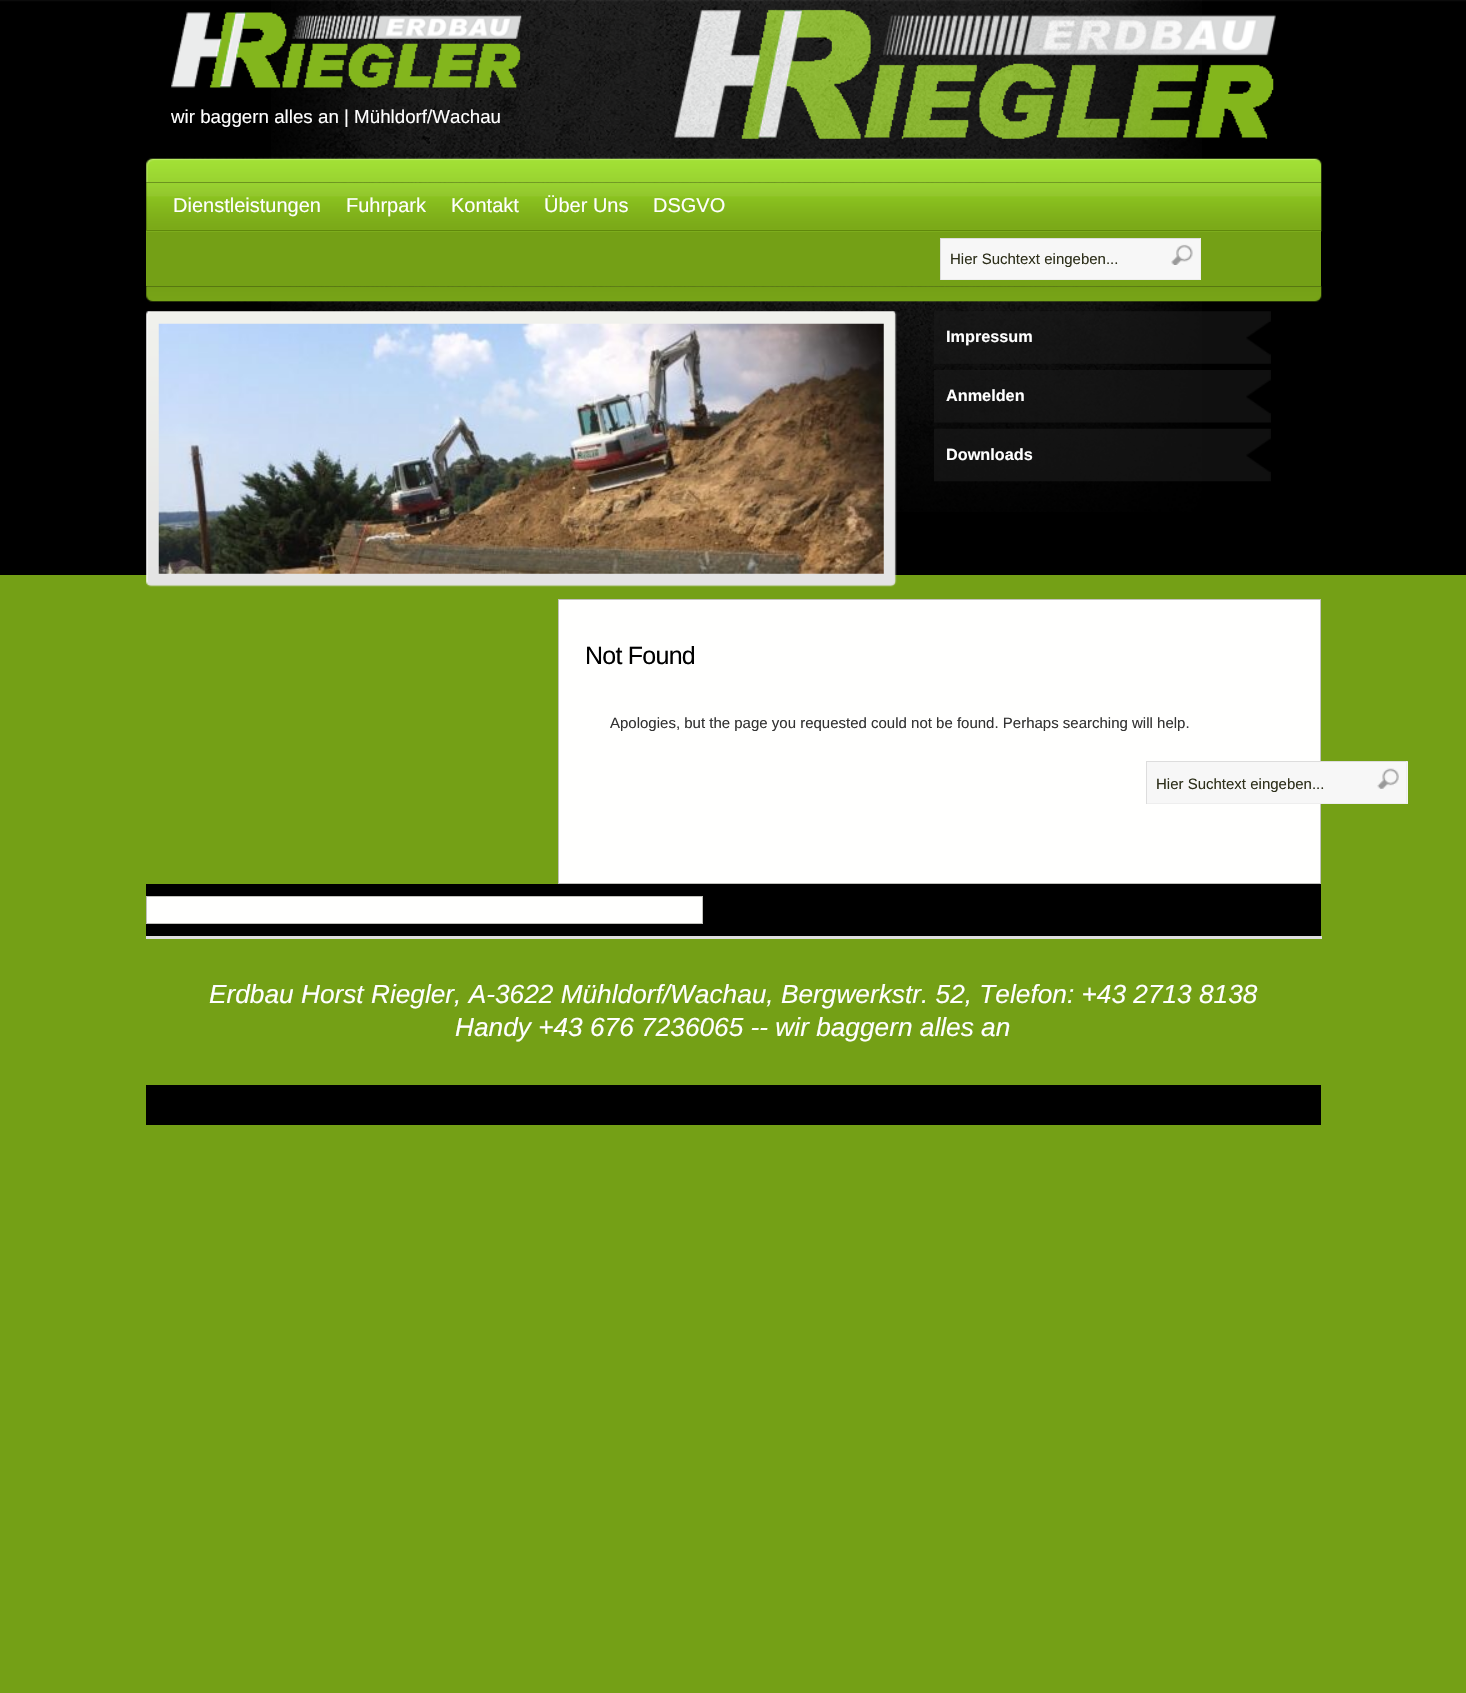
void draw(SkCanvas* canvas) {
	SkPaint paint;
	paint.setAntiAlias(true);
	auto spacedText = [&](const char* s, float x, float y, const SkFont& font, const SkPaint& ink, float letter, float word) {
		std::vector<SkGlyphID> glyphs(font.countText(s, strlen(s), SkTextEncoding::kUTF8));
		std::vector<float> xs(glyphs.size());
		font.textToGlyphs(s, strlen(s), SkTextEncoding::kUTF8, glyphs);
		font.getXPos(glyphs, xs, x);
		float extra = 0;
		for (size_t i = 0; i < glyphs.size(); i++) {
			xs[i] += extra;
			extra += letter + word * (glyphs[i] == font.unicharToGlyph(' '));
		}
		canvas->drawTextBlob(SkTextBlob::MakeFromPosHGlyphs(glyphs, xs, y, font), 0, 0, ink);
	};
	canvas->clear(0xff74a016);
	canvas->drawImageRect(SkImages::DeferredFromEncodedData(SkData::MakeFromFileName("img1.png")), SkRect::MakeXYWH(0, 0, 1466, 575), SkSamplingOptions());
	canvas->drawImageRect(SkImages::DeferredFromEncodedData(SkData::MakeFromFileName("img2.png")), SkRect::MakeXYWH(271, 0, 931, 512), SkSamplingOptions());
	canvas->drawImageRect(SkImages::DeferredFromEncodedData(SkData::MakeFromFileName("img3.png")), SkRect::MakeXYWH(171, 12, 351, 76), SkSamplingOptions());
	SkFont f1(fontMgr->matchFamilyStyle("Liberation Sans", SkFontStyle::Normal()), 18.75);
	f1.setSubpixel(true);
	paint.setColor(0xffffffff);
	canvas->drawString("wir baggern alles an | Mühldorf/Wachau", 171, 123, f1, paint);
	canvas->drawImageRect(SkImages::DeferredFromEncodedData(SkData::MakeFromFileName("img4.png")), SkRect::MakeXYWH(146, 157, 1176, 26), SkSamplingOptions());
	paint.setColor(0xff74a016);
	canvas->drawRect(SkRect::MakeXYWH(146, 231, 1175, 55), paint);
	canvas->drawImageRect(SkImages::DeferredFromEncodedData(SkData::MakeFromFileName("img5.png")), SkRect::MakeXYWH(146, 182, 1176, 50), SkSamplingOptions());
	paint.setColor(0xff60880c);
	canvas->drawRect(SkRect::MakeXYWH(146, 230, 1175, 1), paint);
	SkFont f2(fontMgr->matchFamilyStyle("Liberation Sans", SkFontStyle::Normal()), 20);
	f2.setSubpixel(true);
	paint.setColor(0xffffffff);
	canvas->drawString("Dienstleistungen", 173, 212, f2, paint);
	canvas->drawString("Fuhrpark", 346, 212, f2, paint);
	canvas->drawString("Kontakt", 451, 212, f2, paint);
	canvas->drawString("Über Uns", 544, 212, f2, paint);
	canvas->drawString("DSGVO", 653, 212, f2, paint);
	paint.setColor(0xfff7f7f7);
	canvas->drawRect(SkRect::MakeXYWH(941, 239, 259, 40), paint);
	paint.setColor(0xffdddddd);
	canvas->drawRect(SkRect::MakeXYWH(940, 238, 261, 1), paint);
	paint.setColor(0xffeeeeee);
	canvas->drawRect(SkRect::MakeXYWH(1200, 238, 1, 42), paint);
	canvas->drawRect(SkRect::MakeXYWH(940, 279, 261, 1), paint);
	paint.setColor(0xffdddddd);
	canvas->drawRect(SkRect::MakeXYWH(940, 238, 1, 42), paint);
	SkFont f3(fontMgr->matchFamilyStyle("Liberation Sans", SkFontStyle::Normal()), 15);
	f3.setSubpixel(true);
	paint.setColor(0xff2e301b);
	canvas->drawString("Hier Suchtext eingeben...", 950, 264, f3, paint);
	canvas->drawImageRect(SkImages::DeferredFromEncodedData(SkData::MakeFromFileName("img6.png")), SkRect::MakeXYWH(1171, 244, 22, 21), SkSamplingOptions());
	canvas->drawImageRect(SkImages::DeferredFromEncodedData(SkData::MakeFromFileName("img7.png")), SkRect::MakeXYWH(146, 286, 1176, 17), SkSamplingOptions());
	canvas->drawImageRect(SkImages::DeferredFromEncodedData(SkData::MakeFromFileName("img8.png")), SkRect::MakeXYWH(146, 311, 751, 276), SkSamplingOptions());
	canvas->drawImageRect(SkImages::DeferredFromEncodedData(SkData::MakeFromFileName("img9.png")), SkRect::MakeXYWH(158, 323, 726, 251), SkSamplingOptions());
	canvas->drawImageRect(SkImages::DeferredFromEncodedData(SkData::MakeFromFileName("img10.png")), SkRect::MakeXYWH(934, 311, 337, 53), SkSamplingOptions());
	SkFont f4(fontMgr->matchFamilyStyle("Liberation Sans", SkFontStyle::Bold()), 16.25);
	f4.setSubpixel(true);
	paint.setColor(0xffffffff);
	canvas->drawString("Impressum", 946, 342, f4, paint);
	canvas->drawImageRect(SkImages::DeferredFromEncodedData(SkData::MakeFromFileName("img11.png")), SkRect::MakeXYWH(934, 370, 337, 53), SkSamplingOptions());
	canvas->drawString("Anmelden", 946, 401, f4, paint);
	canvas->drawImageRect(SkImages::DeferredFromEncodedData(SkData::MakeFromFileName("img12.png")), SkRect::MakeXYWH(934, 428, 337, 54), SkSamplingOptions());
	canvas->drawString("Downloads", 946, 460, f4, paint);
	paint.setColor(0xfffffffe);
	canvas->drawRect(SkRect::MakeXYWH(558.5, 599.5, 762, 284), paint);
	paint.setStroke(true);
	paint.setStrokeWidth(1);
	paint.setColor(0xffc1c1bc);
	canvas->drawRect(SkRect::MakeXYWH(558.5, 599.5, 762, 284), paint);
	SkFont f5(fontMgr->matchFamilyStyle("Liberation Sans", SkFontStyle::Normal()), 25);
	f5.setSubpixel(true);
	paint.setStroke(false);
	paint.setColor(0xff000000);
	spacedText("Not Found", 585, 664, f5, paint, -0.75, 0);
	paint.setColor(0xff333333);
	canvas->drawString("Apologies, but the page you requested could not be found. Perhaps searching will help.", 610, 728, f3, paint);
	paint.setColor(0xfff7f7f7);
	canvas->drawRect(SkRect::MakeXYWH(1147, 762, 261, 41), paint);
	paint.setColor(0xffdddddd);
	canvas->drawRect(SkRect::MakeXYWH(1146, 761, 262, 1), paint);
	paint.setColor(0xffeeeeee);
	canvas->drawRect(SkRect::MakeXYWH(1406, 761, 1, 43), paint);
	canvas->drawRect(SkRect::MakeXYWH(1146, 803, 262, 1), paint);
	paint.setColor(0xffdddddd);
	canvas->drawRect(SkRect::MakeXYWH(1146, 761, 1, 43), paint);
	paint.setColor(0xff2e301b);
	canvas->drawString("Hier Suchtext eingeben...", 1156, 789, f3, paint);
	canvas->drawImageRect(SkImages::DeferredFromEncodedData(SkData::MakeFromFileName("img13.png")), SkRect::MakeXYWH(1377, 768, 22, 21), SkSamplingOptions());
	paint.setColor(0xff000000);
	canvas->drawRect(SkRect::MakeXYWH(146, 884, 1175, 241), paint);
	paint.setColor(0xfffffffe);
	canvas->drawRect(SkRect::MakeXYWH(146.5, 896.5, 556, 27), paint);
	paint.setStroke(true);
	paint.setColor(0xffc1c1bc);
	canvas->drawRect(SkRect::MakeXYWH(146.5, 896.5, 556, 27), paint);
	paint.setStroke(false);
	paint.setColor(0xff74a016);
	canvas->drawRect(SkRect::MakeXYWH(146, 939, 1175, 146), paint);
	paint.setColor(0xffdedede);
	canvas->drawRect(SkRect::MakeXYWH(146, 936, 1176, 3), paint);
	SkFont f6(fontMgr->matchFamilyStyle("Liberation Sans", SkFontStyle::Italic()), 26.25);
	f6.setSubpixel(true);
	paint.setColor(0xffffffff);
	canvas->drawString("Erdbau Horst Riegler, A-3622 Mühldorf/Wachau, Bergwerkstr. 52, Telefon: +43 2713 8138", 209, 1003, f6, paint);
	canvas->drawString("Handy +43 676 7236065 -- wir baggern alles an", 455, 1036, f6, paint);
}
